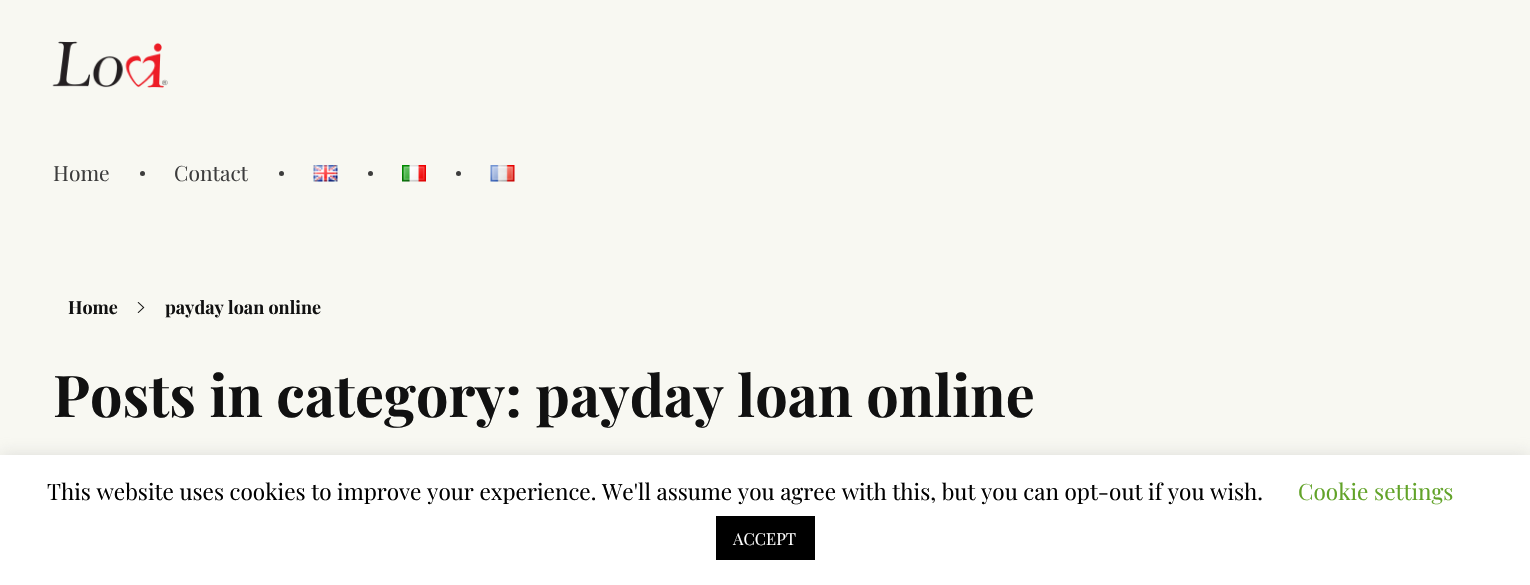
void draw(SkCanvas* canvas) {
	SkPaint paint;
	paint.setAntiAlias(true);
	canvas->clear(0xfff8f8f2);
	canvas->drawImageRect(SkImages::DeferredFromEncodedData(SkData::MakeFromFileName("img1.png")), SkRect::MakeXYWH(52, 41, 116, 47), SkSamplingOptions());
	SkFont f1(fontMgr->matchFamilyStyle("Playfair Display", SkFontStyle::Normal()), 21);
	f1.setSubpixel(true);
	paint.setColor(0xff3d3d3d);
	canvas->drawString("Home", 53, 181, f1, paint);
	canvas->drawCircle(142.5, 173.5, 2.5, paint);
	canvas->drawString("Contact", 174, 181, f1, paint);
	canvas->drawCircle(281.5, 173.5, 2.5, paint);
	canvas->drawImageRect(SkImages::DeferredFromEncodedData(SkData::MakeFromFileName("img2.png")), SkRect::MakeXYWH(313, 165, 25, 17), SkSamplingOptions());
	canvas->drawCircle(370.5, 173.5, 2.5, paint);
	canvas->drawImageRect(SkImages::DeferredFromEncodedData(SkData::MakeFromFileName("img3.png")), SkRect::MakeXYWH(402, 165, 24, 17), SkSamplingOptions());
	canvas->drawCircle(458.5, 173.5, 2.5, paint);
	canvas->drawImageRect(SkImages::DeferredFromEncodedData(SkData::MakeFromFileName("img4.png")), SkRect::MakeXYWH(490, 165, 25, 17), SkSamplingOptions());
	SkFont f2(fontMgr->matchFamilyStyle("Playfair Display", SkFontStyle::Bold()), 18);
	f2.setSubpixel(true);
	paint.setColor(0xff111111);
	canvas->drawString("Home", 68, 314, f2, paint);
	canvas->drawImageRect(SkImages::DeferredFromEncodedData(SkData::MakeFromFileName("img5.png")), SkRect::MakeXYWH(137, 302, 8, 11), SkSamplingOptions());
	canvas->drawString("payday loan online", 165, 314, f2, paint);
	SkFont f3(fontMgr->matchFamilyStyle("Playfair Display", SkFontStyle::Bold()), 57.6);
	f3.setSubpixel(true);
	canvas->drawString("Posts in category: payday loan online", 53, 417, f3, paint);
	paint.setColor(0x4dacabab);
	paint.setMaskFilter(SkMaskFilter::MakeBlur(kNormal_SkBlurStyle, 7.5));
	canvas->drawRect(SkRect::MakeXYWH(0, 453, 1530, 131), paint);
	paint.setMaskFilter(nullptr);
	paint.setColor(0xffffffff);
	canvas->drawRect(SkRect::MakeXYWH(0, 455, 1530, 130), paint);
	SkFont f4(fontMgr->matchFamilyStyle("Playfair Display", SkFontStyle::Normal()), 22.5);
	f4.setSubpixel(true);
	paint.setColor(0xff000000);
	canvas->drawString("This website uses cookies to improve your experience. We'll assume you agree with this, but you can opt-out if you wish.", 47, 500, f4, paint);
	paint.setColor(0xff62a329);
	canvas->drawString("Cookie settings", 1298, 500, f4, paint);
	paint.setColor(0xff000000);
	canvas->drawRect(SkRect::MakeXYWH(716, 516, 99, 44), paint);
	SkFont f5(fontMgr->matchFamilyStyle("Playfair Display", SkFontStyle::Normal()), 16.5);
	f5.setSubpixel(true);
	paint.setColor(0xffffffff);
	canvas->drawString("ACCEPT", 733, 545, f5, paint);
}
